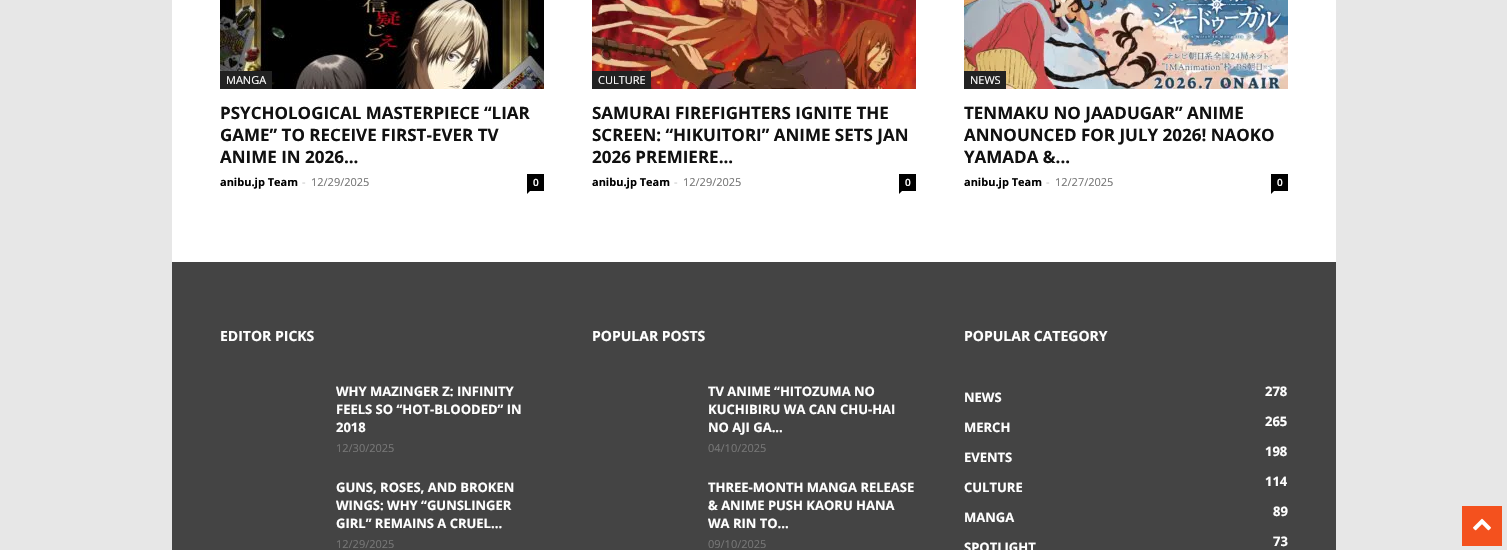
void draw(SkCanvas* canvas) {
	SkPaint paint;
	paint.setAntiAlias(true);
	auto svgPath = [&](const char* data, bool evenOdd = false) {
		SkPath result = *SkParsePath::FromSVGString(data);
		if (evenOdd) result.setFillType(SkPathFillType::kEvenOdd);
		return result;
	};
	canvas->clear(0xffe7e7e7);
	paint.setColor(0xffffffff);
	canvas->drawRect(SkRect::MakeXYWH(172, 0, 1164, 262), paint);
	canvas->drawImageRect(SkImages::DeferredFromEncodedData(SkData::MakeFromFileName("img1.png")), SkRect::MakeXYWH(220, 0, 324, 89), SkSamplingOptions());
	paint.setColor(0xff222222);
	canvas->drawRect(SkRect::MakeXYWH(220, 71, 52, 18), paint);
	SkFont f1(fontMgr->matchFamilyStyle("Open Sans", SkFontStyle::Normal()), 11);
	f1.setSubpixel(true);
	paint.setColor(0xffffffff);
	canvas->drawString("MANGA", 226, 84, f1, paint);
	SkFont f2(fontMgr->matchFamilyStyle("Open Sans", SkFontStyle::Bold()), 17);
	f2.setSubpixel(true);
	paint.setColor(0xff111111);
	canvas->drawString("PSYCHOLOGICAL MASTERPIECE “LIAR", 220, 119, f2, paint);
	canvas->drawString("GAME” TO RECEIVE FIRST-EVER TV", 220, 141, f2, paint);
	canvas->drawString("ANIME IN 2026...", 220, 163, f2, paint);
	SkFont f3(fontMgr->matchFamilyStyle("Open Sans", SkFontStyle::Bold()), 11);
	f3.setSubpixel(true);
	paint.setColor(0xff000000);
	canvas->drawString("anibu.jp Team", 220, 186, f3, paint);
	paint.setColor(0xffcccccc);
	canvas->drawString("-", 302, 186, f1, paint);
	paint.setColor(0xff767676);
	canvas->drawString("12/29/2025", 311, 186, f1, paint);
	paint.setColor(0xff000000);
	canvas->drawRect(SkRect::MakeXYWH(527, 174, 17, 17), paint);
	SkFont f4(fontMgr->matchFamilyStyle("Open Sans", SkFontStyle(600, SkFontStyle::kNormal_Width, SkFontStyle::kUpright_Slant)), 10);
	f4.setSubpixel(true);
	paint.setColor(0xffffffff);
	canvas->drawString("0", 533, 186, f4, paint);
	paint.setColor(0xff000000);
	canvas->drawPath(svgPath("M527 191H530L527 194Z"), paint);
	canvas->drawImageRect(SkImages::DeferredFromEncodedData(SkData::MakeFromFileName("img2.png")), SkRect::MakeXYWH(592, 0, 324, 89), SkSamplingOptions());
	paint.setColor(0xff222222);
	canvas->drawRect(SkRect::MakeXYWH(592, 71, 59, 18), paint);
	paint.setColor(0xffffffff);
	canvas->drawString("CULTURE", 598, 84, f1, paint);
	paint.setColor(0xff111111);
	canvas->drawString("SAMURAI FIREFIGHTERS IGNITE THE", 592, 119, f2, paint);
	canvas->drawString("SCREEN: “HIKUITORI” ANIME SETS JAN", 592, 141, f2, paint);
	canvas->drawString("2026 PREMIERE...", 592, 163, f2, paint);
	paint.setColor(0xff000000);
	canvas->drawString("anibu.jp Team", 592, 186, f3, paint);
	paint.setColor(0xffcccccc);
	canvas->drawString("-", 674, 186, f1, paint);
	paint.setColor(0xff767676);
	canvas->drawString("12/29/2025", 683, 186, f1, paint);
	paint.setColor(0xff000000);
	canvas->drawRect(SkRect::MakeXYWH(899, 174, 17, 17), paint);
	paint.setColor(0xffffffff);
	canvas->drawString("0", 905, 186, f4, paint);
	paint.setColor(0xff000000);
	canvas->drawPath(svgPath("M899 191H902L899 194Z"), paint);
	canvas->drawImageRect(SkImages::DeferredFromEncodedData(SkData::MakeFromFileName("img3.png")), SkRect::MakeXYWH(964, 0, 324, 89), SkSamplingOptions());
	paint.setColor(0xff222222);
	canvas->drawRect(SkRect::MakeXYWH(964, 71, 42, 18), paint);
	paint.setColor(0xffffffff);
	canvas->drawString("NEWS", 970, 84, f1, paint);
	paint.setColor(0xff111111);
	canvas->drawString("TENMAKU NO JAADUGAR” ANIME", 964, 119, f2, paint);
	canvas->drawString("ANNOUNCED FOR JULY 2026! NAOKO", 964, 141, f2, paint);
	canvas->drawString("YAMADA &...", 964, 163, f2, paint);
	paint.setColor(0xff000000);
	canvas->drawString("anibu.jp Team", 964, 186, f3, paint);
	paint.setColor(0xffcccccc);
	canvas->drawString("-", 1046, 186, f1, paint);
	paint.setColor(0xff767676);
	canvas->drawString("12/27/2025", 1055, 186, f1, paint);
	paint.setColor(0xff000000);
	canvas->drawRect(SkRect::MakeXYWH(1271, 174, 17, 17), paint);
	paint.setColor(0xffffffff);
	canvas->drawString("0", 1277, 186, f4, paint);
	paint.setColor(0xff000000);
	canvas->drawPath(svgPath("M1271 191H1274L1271 194Z"), paint);
	paint.setColor(0xff444444);
	canvas->drawRect(SkRect::MakeXYWH(172, 262, 1164, 288), paint);
	SkFont f5(fontMgr->matchFamilyStyle("Open Sans", SkFontStyle::Bold()), 14);
	f5.setSubpixel(true);
	paint.setColor(0xffffffff);
	canvas->drawString("EDITOR PICKS", 220, 341, f5, paint);
	SkFont f6(fontMgr->matchFamilyStyle("Open Sans", SkFontStyle::Bold()), 13);
	f6.setSubpixel(true);
	canvas->drawString("WHY MAZINGER Z: INFINITY", 336, 396, f6, paint);
	canvas->drawString("FEELS SO “HOT-BLOODED” IN", 336, 414, f6, paint);
	canvas->drawString("2018", 336, 432, f6, paint);
	paint.setColor(0xff767676);
	canvas->drawString("12/30/2025", 336, 452, f1, paint);
	paint.setColor(0xffffffff);
	canvas->drawString("GUNS, ROSES, AND BROKEN", 336, 492, f6, paint);
	canvas->drawString("WINGS: WHY “GUNSLINGER", 336, 510, f6, paint);
	canvas->drawString("GIRL” REMAINS A CRUEL...", 336, 528, f6, paint);
	paint.setColor(0xff767676);
	canvas->drawString("12/29/2025", 336, 548, f1, paint);
	paint.setColor(0xffffffff);
	canvas->drawString("POPULAR POSTS", 592, 341, f5, paint);
	canvas->drawString("TV ANIME “HITOZUMA NO", 708, 396, f6, paint);
	canvas->drawString("KUCHIBIRU WA CAN CHU-HAI", 708, 414, f6, paint);
	canvas->drawString("NO AJI GA...", 708, 432, f6, paint);
	paint.setColor(0xff767676);
	canvas->drawString("04/10/2025", 708, 452, f1, paint);
	paint.setColor(0xffffffff);
	canvas->drawString("THREE-MONTH MANGA RELEASE", 708, 492, f6, paint);
	canvas->drawString("& ANIME PUSH KAORU HANA", 708, 510, f6, paint);
	canvas->drawString("WA RIN TO...", 708, 528, f6, paint);
	paint.setColor(0xff767676);
	canvas->drawString("09/10/2025", 708, 548, f1, paint);
	paint.setColor(0xffffffff);
	canvas->drawString("POPULAR CATEGORY", 964, 341, f5, paint);
	canvas->drawString("NEWS", 964, 402, f6, paint);
	canvas->drawString("278", 1265, 396, f6, paint);
	canvas->drawString("MERCH", 964, 432, f6, paint);
	canvas->drawString("265", 1265, 426, f6, paint);
	canvas->drawString("EVENTS", 964, 462, f6, paint);
	canvas->drawString("198", 1265, 456, f6, paint);
	canvas->drawString("114", 1265, 486, f6, paint);
	canvas->drawString("CULTURE", 964, 492, f6, paint);
	canvas->drawString("MANGA", 964, 522, f6, paint);
	canvas->drawString("89", 1273, 516, f6, paint);
	canvas->drawString("SPOTLIGHT", 964, 552, f6, paint);
	canvas->drawString("73", 1273, 546, f6, paint);
	paint.setColor(0xfff4511e);
	canvas->drawRect(SkRect::MakeXYWH(1462, 506, 40, 40), paint);
	canvas->drawImageRect(SkImages::DeferredFromEncodedData(SkData::MakeFromFileName("img4.png")), SkRect::MakeXYWH(1473, 518, 18, 13), SkSamplingOptions());
}
